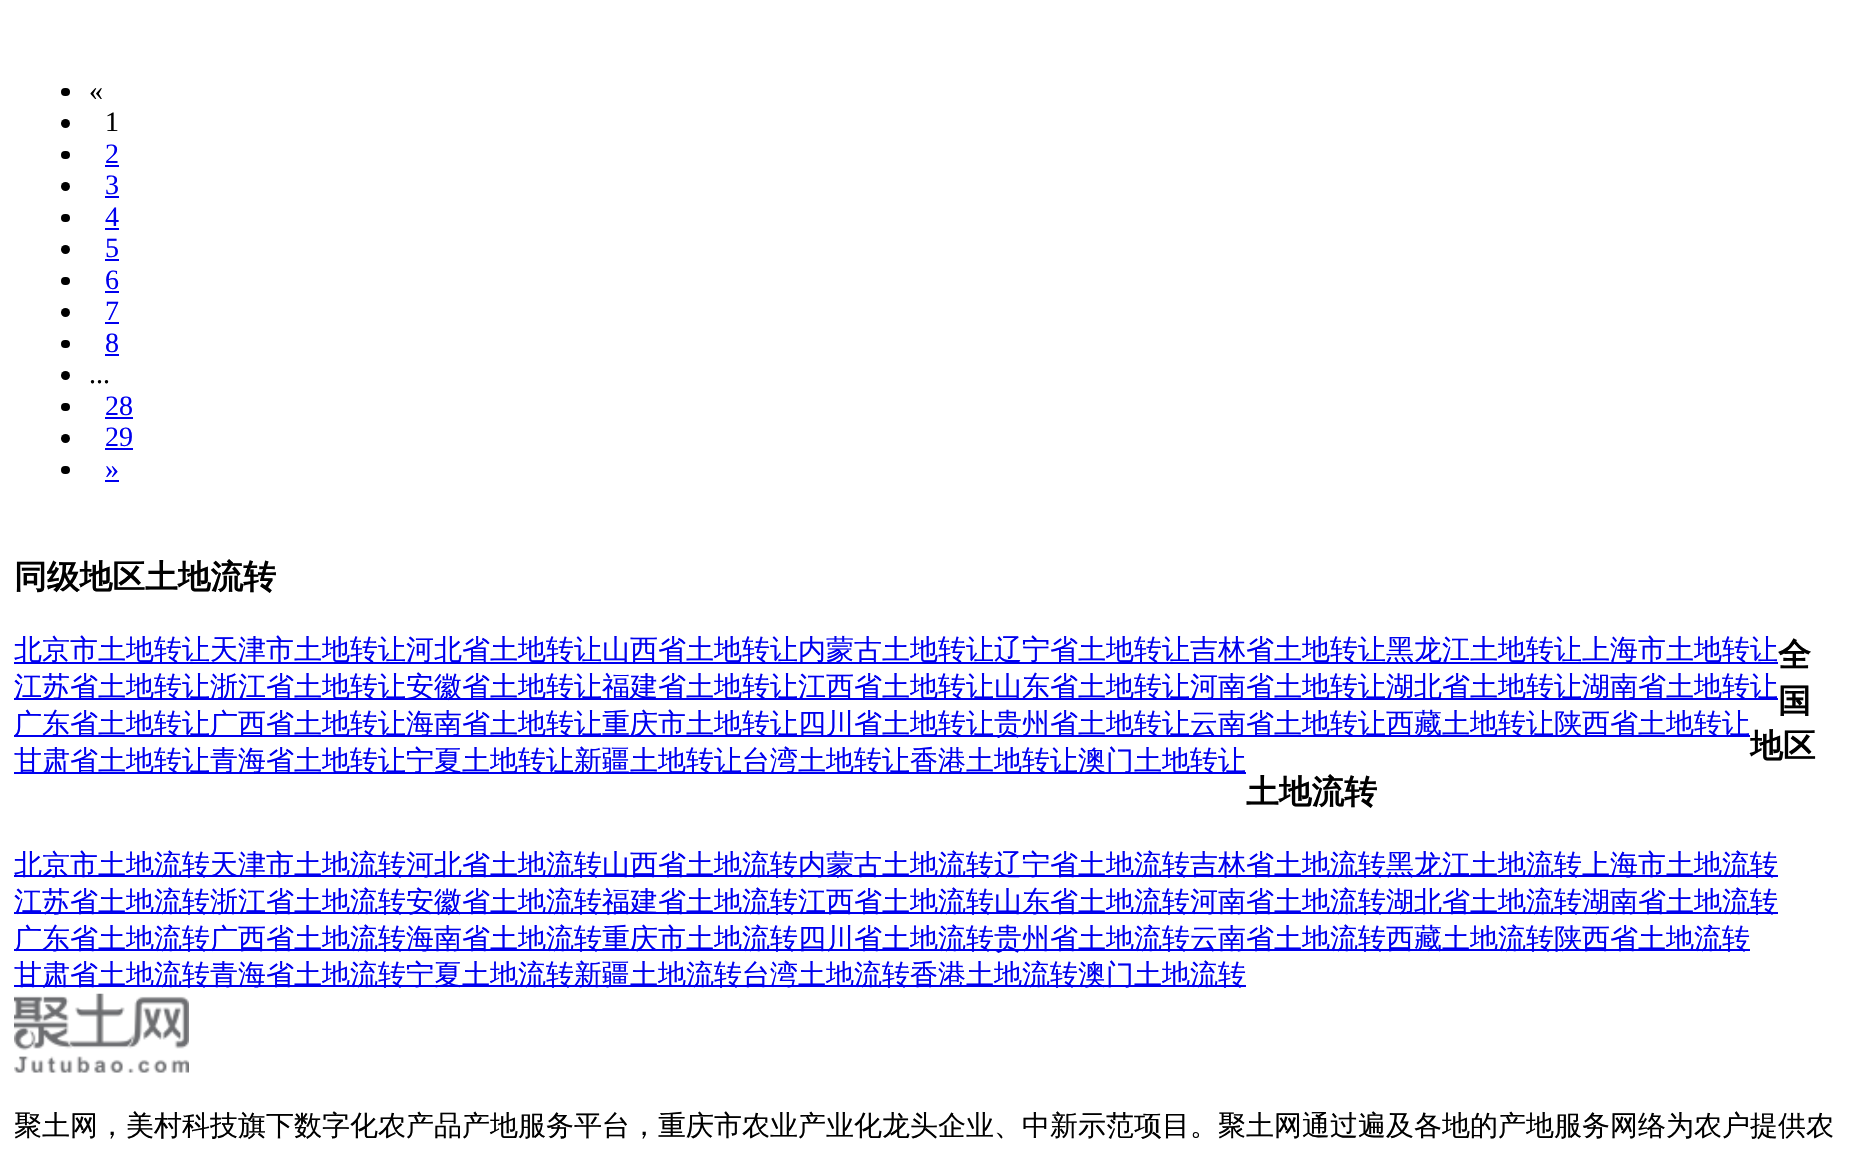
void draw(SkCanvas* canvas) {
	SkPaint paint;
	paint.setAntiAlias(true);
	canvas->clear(0xffffffff);
	paint.setColor(0xff000000);
	canvas->drawRoundRect(SkRect::MakeXYWH(61, 88, 9, 8), 4, 4, paint);
	SkFont f1(fontMgr->matchFamilyStyle("Liberation Serif", SkFontStyle::Normal()), 28);
	f1.setSubpixel(true);
	canvas->drawString("«", 89, 100, f1, paint);
	canvas->drawCircle(65.5, 123.5, 4.5, paint);
	canvas->drawString("1", 105, 131, f1, paint);
	canvas->drawRoundRect(SkRect::MakeXYWH(61, 151, 9, 8), 4, 4, paint);
	paint.setColor(0xff0000ee);
	canvas->drawString("2", 105, 163, f1, paint);
	canvas->drawRect(SkRect::MakeXYWH(105, 165, 14, 2), paint);
	paint.setColor(0xff000000);
	canvas->drawCircle(65.5, 186.5, 4.5, paint);
	paint.setColor(0xff0000ee);
	canvas->drawString("3", 105, 194, f1, paint);
	canvas->drawRect(SkRect::MakeXYWH(105, 196, 14, 2), paint);
	paint.setColor(0xff000000);
	canvas->drawRoundRect(SkRect::MakeXYWH(61, 214, 9, 8), 4, 4, paint);
	paint.setColor(0xff0000ee);
	canvas->drawString("4", 105, 226, f1, paint);
	canvas->drawRect(SkRect::MakeXYWH(105, 228, 14, 2), paint);
	paint.setColor(0xff000000);
	canvas->drawCircle(65.5, 249.5, 4.5, paint);
	paint.setColor(0xff0000ee);
	canvas->drawString("5", 105, 257, f1, paint);
	canvas->drawRect(SkRect::MakeXYWH(105, 259, 14, 2), paint);
	paint.setColor(0xff000000);
	canvas->drawRoundRect(SkRect::MakeXYWH(61, 277, 9, 8), 4, 4, paint);
	paint.setColor(0xff0000ee);
	canvas->drawString("6", 105, 289, f1, paint);
	canvas->drawRect(SkRect::MakeXYWH(105, 291, 14, 2), paint);
	paint.setColor(0xff000000);
	canvas->drawCircle(65.5, 312.5, 4.5, paint);
	paint.setColor(0xff0000ee);
	canvas->drawString("7", 105, 320, f1, paint);
	canvas->drawRect(SkRect::MakeXYWH(105, 322, 14, 2), paint);
	paint.setColor(0xff000000);
	canvas->drawRoundRect(SkRect::MakeXYWH(61, 340, 9, 8), 4, 4, paint);
	paint.setColor(0xff0000ee);
	canvas->drawString("8", 105, 352, f1, paint);
	canvas->drawRect(SkRect::MakeXYWH(105, 354, 14, 2), paint);
	paint.setColor(0xff000000);
	canvas->drawCircle(65.5, 375.5, 4.5, paint);
	canvas->drawString("...", 89, 383, f1, paint);
	canvas->drawRoundRect(SkRect::MakeXYWH(61, 403, 9, 8), 4, 4, paint);
	paint.setColor(0xff0000ee);
	canvas->drawString("28", 105, 415, f1, paint);
	canvas->drawRect(SkRect::MakeXYWH(105, 417, 28, 2), paint);
	paint.setColor(0xff000000);
	canvas->drawCircle(65.5, 438.5, 4.5, paint);
	paint.setColor(0xff0000ee);
	canvas->drawString("29", 105, 446, f1, paint);
	canvas->drawRect(SkRect::MakeXYWH(105, 448, 28, 2), paint);
	paint.setColor(0xff000000);
	canvas->drawRoundRect(SkRect::MakeXYWH(61, 466, 9, 8), 4, 4, paint);
	paint.setColor(0xff0000ee);
	canvas->drawString("»", 105, 478, f1, paint);
	canvas->drawRect(SkRect::MakeXYWH(105, 480, 14, 2), paint);
	SkFont f2(fontMgr->matchFamilyStyle("WenQuanYi Zen Hei", SkFontStyle::Bold()), 32.75);
	f2.setSubpixel(true);
	paint.setColor(0xff000000);
	canvas->drawString("同级地区土地流转", 14, 588, f2, paint);
	paint.setColor(0xff0000ee);
	canvas->drawRect(SkRect::MakeXYWH(14, 662, 1764, 2), paint);
	SkFont f3(fontMgr->matchFamilyStyle("WenQuanYi Zen Hei", SkFontStyle(500, SkFontStyle::kNormal_Width, SkFontStyle::kUpright_Slant)), 28);
	f3.setSubpixel(true);
	canvas->drawString("北京市土地转让天津市土地转让河北省土地转让山西省土地转让内蒙古土地转让辽宁省土地转让吉林省土地转让黑龙江土地转让上海市土地转让", 14, 659, f3, paint);
	canvas->drawRect(SkRect::MakeXYWH(14, 698, 1764, 2), paint);
	canvas->drawString("江苏省土地转让浙江省土地转让安徽省土地转让福建省土地转让江西省土地转让山东省土地转让河南省土地转让湖北省土地转让湖南省土地转让", 14, 696, f3, paint);
	canvas->drawRect(SkRect::MakeXYWH(14, 735, 1736, 2), paint);
	canvas->drawString("广东省土地转让广西省土地转让海南省土地转让重庆市土地转让四川省土地转让贵州省土地转让云南省土地转让西藏土地转让陕西省土地转让", 14, 733, f3, paint);
	canvas->drawRect(SkRect::MakeXYWH(14, 772, 1232, 2), paint);
	canvas->drawString("甘肃省土地转让青海省土地转让宁夏土地转让新疆土地转让台湾土地转让香港土地转让澳门土地转让", 14, 770, f3, paint);
	paint.setColor(0xff000000);
	canvas->drawString("全", 1778, 666, f2, paint);
	canvas->drawString("国", 1778, 712, f2, paint);
	canvas->drawString("地区", 1750, 757, f2, paint);
	canvas->drawString("土地流转", 1246, 803, f2, paint);
	paint.setColor(0xff0000ee);
	canvas->drawRect(SkRect::MakeXYWH(14, 875, 1764, 2), paint);
	canvas->drawString("北京市土地流转天津市土地流转河北省土地流转山西省土地流转内蒙古土地流转辽宁省土地流转吉林省土地流转黑龙江土地流转上海市土地流转", 14, 874, f3, paint);
	canvas->drawRect(SkRect::MakeXYWH(14, 912, 1764, 2), paint);
	canvas->drawString("江苏省土地流转浙江省土地流转安徽省土地流转福建省土地流转江西省土地流转山东省土地流转河南省土地流转湖北省土地流转湖南省土地流转", 14, 911, f3, paint);
	canvas->drawRect(SkRect::MakeXYWH(14, 949, 1736, 2), paint);
	canvas->drawString("广东省土地流转广西省土地流转海南省土地流转重庆市土地流转四川省土地流转贵州省土地流转云南省土地流转西藏土地流转陕西省土地流转", 14, 948, f3, paint);
	canvas->drawRect(SkRect::MakeXYWH(14, 985, 1232, 2), paint);
	canvas->drawString("甘肃省土地流转青海省土地流转宁夏土地流转新疆土地流转台湾土地流转香港土地流转澳门土地流转", 14, 984, f3, paint);
	canvas->drawImageRect(SkImages::DeferredFromEncodedData(SkData::MakeFromFileName("img1.png")), SkRect::MakeXYWH(14, 993, 175, 80), SkSamplingOptions());
	paint.setColor(0xff000000);
	canvas->drawString("聚土网，美村科技旗下数字化农产品产地服务平台，重庆市农业产业化龙头企业、中新示范项目。聚土网通过遍及各地的产地服务网络为农户提供农", 14, 1135, f3, paint);
}
